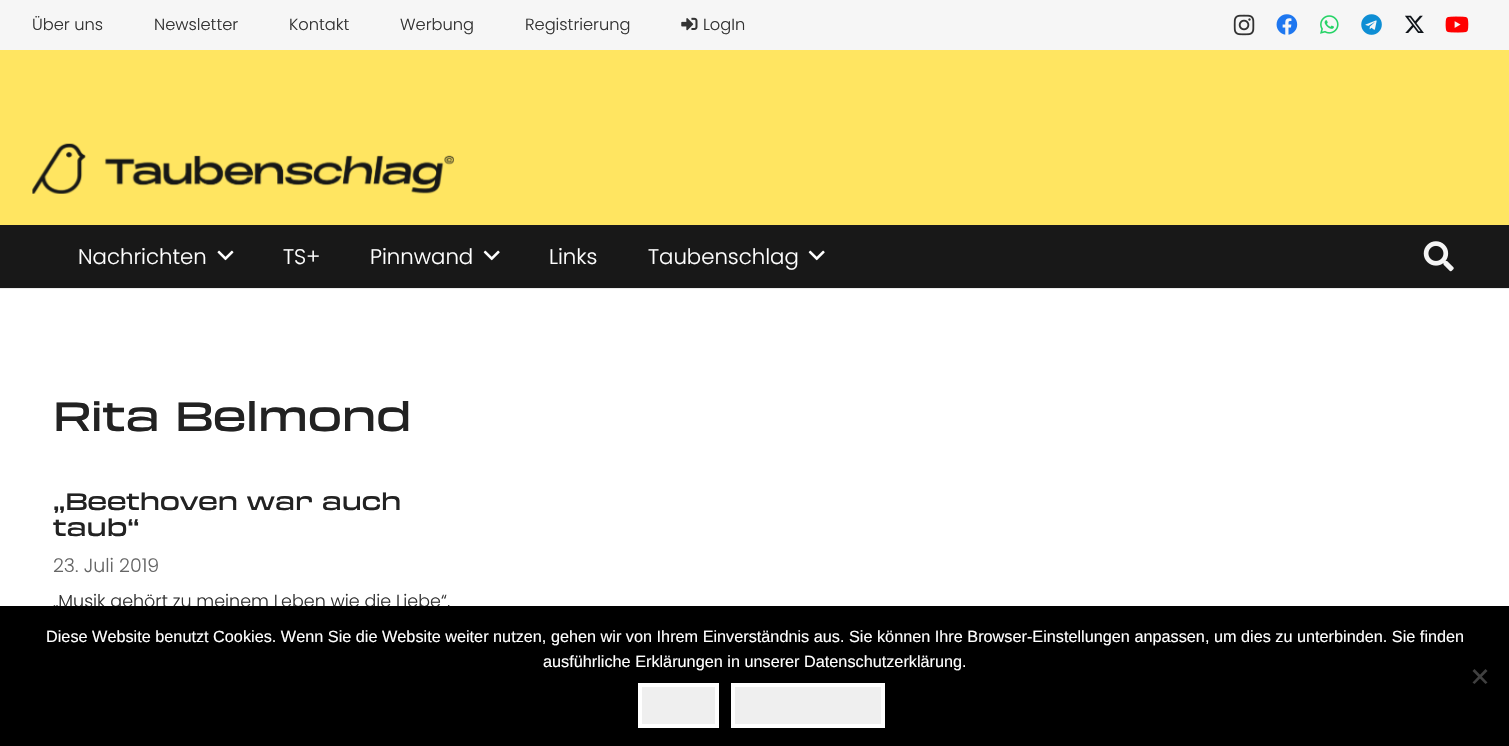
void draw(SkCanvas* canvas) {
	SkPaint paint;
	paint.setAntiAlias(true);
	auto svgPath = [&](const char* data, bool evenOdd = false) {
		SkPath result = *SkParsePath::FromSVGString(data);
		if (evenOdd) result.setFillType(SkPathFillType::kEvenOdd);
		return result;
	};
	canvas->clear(0xffffffff);
	paint.setColor(0xfff6f6f6);
	canvas->drawRect(SkRect::MakeXYWH(0, 0, 1509, 50), paint);
	SkFont f1(fontMgr->matchFamilyStyle("Poppins", SkFontStyle(300, SkFontStyle::kNormal_Width, SkFontStyle::kUpright_Slant)), 16.25);
	f1.setSubpixel(true);
	paint.setColor(0xff333333);
	canvas->drawString("Über uns", 32, 30, f1, paint);
	canvas->drawString("Newsletter", 154, 30, f1, paint);
	canvas->drawString("Kontakt", 289, 30, f1, paint);
	canvas->drawString("Werbung", 400, 30, f1, paint);
	canvas->drawString("Registrierung", 525, 30, f1, paint);
	canvas->drawImageRect(SkImages::DeferredFromEncodedData(SkData::MakeFromFileName("img1.png")), SkRect::MakeXYWH(681, 17, 17, 14), SkSamplingOptions());
	canvas->drawString("LogIn", 703, 30, f1, paint);
	canvas->drawImageRect(SkImages::DeferredFromEncodedData(SkData::MakeFromFileName("img2.png")), SkRect::MakeXYWH(1233, 14, 22, 22), SkSamplingOptions());
	canvas->drawImageRect(SkImages::DeferredFromEncodedData(SkData::MakeFromFileName("img3.png")), SkRect::MakeXYWH(1276, 14, 22, 21), SkSamplingOptions());
	canvas->drawImageRect(SkImages::DeferredFromEncodedData(SkData::MakeFromFileName("img4.png")), SkRect::MakeXYWH(1320, 15, 19, 19), SkSamplingOptions());
	canvas->drawImageRect(SkImages::DeferredFromEncodedData(SkData::MakeFromFileName("img5.png")), SkRect::MakeXYWH(1361, 14, 21, 21), SkSamplingOptions());
	canvas->drawImageRect(SkImages::DeferredFromEncodedData(SkData::MakeFromFileName("img6.png")), SkRect::MakeXYWH(1405, 15, 19, 18), SkSamplingOptions());
	canvas->drawImageRect(SkImages::DeferredFromEncodedData(SkData::MakeFromFileName("img7.png")), SkRect::MakeXYWH(1445, 16, 24, 17), SkSamplingOptions());
	paint.setColor(0xffffe561);
	canvas->drawRect(SkRect::MakeXYWH(0, 50, 1509, 175), paint);
	canvas->drawImageRect(SkImages::DeferredFromEncodedData(SkData::MakeFromFileName("img8.png")), SkRect::MakeXYWH(32, 143, 422, 51), SkSamplingOptions());
	paint.setColor(0xffebebeb);
	canvas->drawRect(SkRect::MakeXYWH(0, 288, 1509, 1), paint);
	paint.setColor(0xff181818);
	canvas->drawRect(SkRect::MakeXYWH(0, 225, 1509, 63), paint);
	SkFont f2(fontMgr->matchFamilyStyle("Poppins", SkFontStyle(300, SkFontStyle::kNormal_Width, SkFontStyle::kUpright_Slant)), 21.25);
	f2.setSubpixel(true);
	paint.setColor(0xffffffff);
	canvas->drawString("Nachrichten", 78, 264, f2, paint);
	canvas->drawImageRect(SkImages::DeferredFromEncodedData(SkData::MakeFromFileName("img9.png")), SkRect::MakeXYWH(217, 250, 17, 11), SkSamplingOptions());
	canvas->drawString("TS+", 283, 264, f2, paint);
	canvas->drawString("Pinnwand", 370, 264, f2, paint);
	canvas->drawImageRect(SkImages::DeferredFromEncodedData(SkData::MakeFromFileName("img10.png")), SkRect::MakeXYWH(483, 250, 17, 11), SkSamplingOptions());
	canvas->drawString("Links", 549, 264, f2, paint);
	canvas->drawString("Taubenschlag", 648, 264, f2, paint);
	canvas->drawImageRect(SkImages::DeferredFromEncodedData(SkData::MakeFromFileName("img10.png")), SkRect::MakeXYWH(808, 250, 17, 11), SkSamplingOptions());
	canvas->drawImageRect(SkImages::DeferredFromEncodedData(SkData::MakeFromFileName("img11.png")), SkRect::MakeXYWH(1423, 241, 31, 31), SkSamplingOptions());
	SkFont f3(fontMgr->matchFamilyStyle("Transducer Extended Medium", SkFontStyle(500, SkFontStyle::kNormal_Width, SkFontStyle::kUpright_Slant)), 40);
	f3.setSubpixel(true);
	paint.setColor(0xff222222);
	canvas->drawString("Rita Belmond", 53, 431, f3, paint);
	SkFont f4(fontMgr->matchFamilyStyle("Transducer Extended Medium", SkFontStyle(500, SkFontStyle::kNormal_Width, SkFontStyle::kUpright_Slant)), 23.4);
	f4.setSubpixel(true);
	canvas->drawString("„Beethoven war auch", 53, 510, f4, paint);
	canvas->drawString("taub“", 53, 536, f4, paint);
	SkFont f5(fontMgr->matchFamilyStyle("Poppins", SkFontStyle(300, SkFontStyle::kNormal_Width, SkFontStyle::kUpright_Slant)), 19);
	f5.setSubpixel(true);
	paint.setColor(0xff666666);
	canvas->drawString("23. Juli 2019", 53, 572, f5, paint);
	SkFont f6(fontMgr->matchFamilyStyle("Poppins", SkFontStyle(300, SkFontStyle::kNormal_Width, SkFontStyle::kUpright_Slant)), 17.5);
	f6.setSubpixel(true);
	paint.setColor(0xff333333);
	canvas->drawString("„Musik gehört zu meinem Leben wie die Liebe“,", 53, 607, f6, paint);
	paint.setColor(0xff000000);
	canvas->drawRect(SkRect::MakeXYWH(0, 606, 1509, 140), paint);
	SkFont f7(fontMgr->matchFamilyStyle("Liberation Sans", SkFontStyle::Normal()), 16.25);
	f7.setSubpixel(true);
	paint.setColor(0xffffffff);
	canvas->drawString("Diese Website benutzt Cookies. Wenn Sie die Website weiter nutzen, gehen wir von Ihrem Einverständnis aus. Sie können Ihre Browser-Einstellungen anpassen, um dies zu unterbinden. Sie finden", 46, 642, f7, paint);
	canvas->drawString("ausführliche Erklärungen in unserer Datenschutzerklärung.", 543, 667, f7, paint);
	paint.setColor(0xff404040);
	canvas->drawPath(svgPath("M1485.5 669L1487.5 671L1474.5 684L1472.5 682.5Z"), paint);
	canvas->drawPath(svgPath("M1472.5 671L1474.5 669L1487.5 682.5L1485.5 684Z"), paint);
	paint.setColor(0xffefefef);
	canvas->drawRect(SkRect::MakeXYWH(640, 685, 77, 41), paint);
	paint.setStroke(true);
	paint.setStrokeWidth(4);
	paint.setColor(0xffffffff);
	canvas->drawRect(SkRect::MakeXYWH(640, 685, 77, 41), paint);
	paint.setStroke(false);
	paint.setColor(0xffefefef);
	canvas->drawRect(SkRect::MakeXYWH(733, 685, 150, 41), paint);
	paint.setStroke(true);
	paint.setColor(0xffffffff);
	canvas->drawRect(SkRect::MakeXYWH(733, 685, 150, 41), paint);
}
